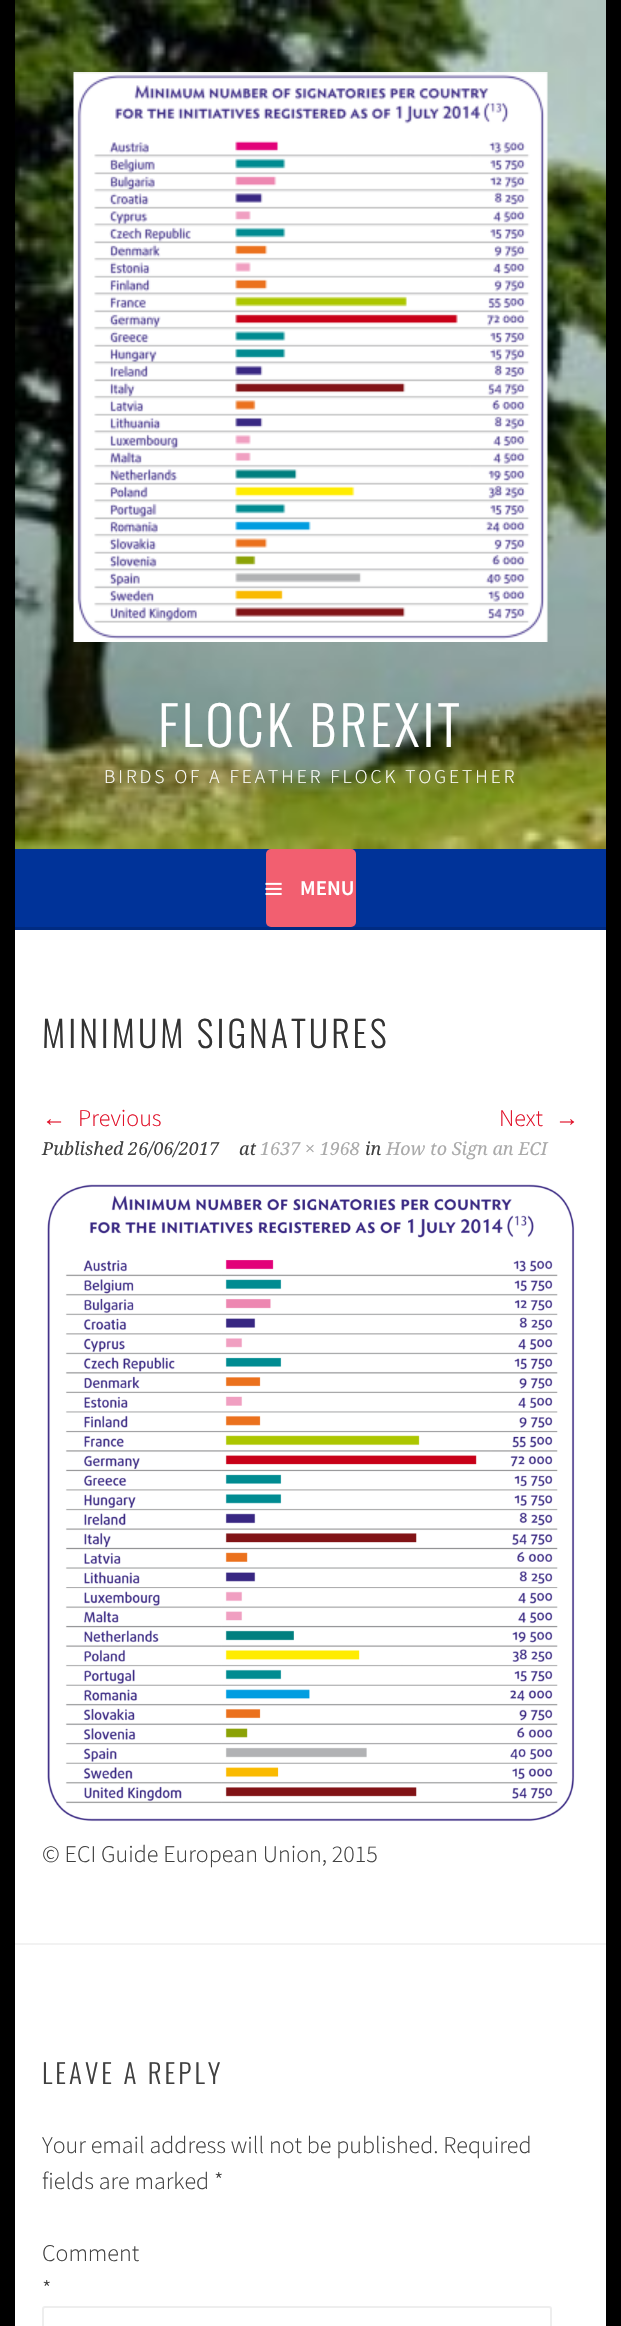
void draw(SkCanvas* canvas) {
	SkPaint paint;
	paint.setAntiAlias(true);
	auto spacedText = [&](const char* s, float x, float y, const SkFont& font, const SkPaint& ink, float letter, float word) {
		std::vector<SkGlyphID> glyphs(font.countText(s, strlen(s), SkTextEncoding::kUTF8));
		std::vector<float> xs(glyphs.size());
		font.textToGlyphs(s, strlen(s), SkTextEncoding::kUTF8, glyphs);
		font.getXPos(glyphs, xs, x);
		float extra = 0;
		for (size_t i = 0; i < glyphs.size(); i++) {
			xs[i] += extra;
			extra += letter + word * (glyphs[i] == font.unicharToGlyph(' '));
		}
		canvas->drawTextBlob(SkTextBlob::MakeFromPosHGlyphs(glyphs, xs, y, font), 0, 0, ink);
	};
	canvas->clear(0xff000000);
	canvas->drawImageRect(SkImages::DeferredFromEncodedData(SkData::MakeFromFileName("img1.png")), SkRect::MakeXYWH(15, 0, 591, 849), SkSamplingOptions());
	canvas->drawImageRect(SkImages::DeferredFromEncodedData(SkData::MakeFromFileName("img2.png")), SkRect::MakeXYWH(73, 72, 475, 570), SkSamplingOptions());
	SkFont f1(fontMgr->matchFamilyStyle("Oswald", SkFontStyle(300, SkFontStyle::kNormal_Width, SkFontStyle::kUpright_Slant)), 54);
	f1.setSubpixel(true);
	paint.setColor(0xffffffff);
	spacedText("FLOCK BREXIT", 158, 747, f1, paint, 3, 0);
	SkFont f2(fontMgr->matchFamilyStyle("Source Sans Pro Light", SkFontStyle(300, SkFontStyle::kNormal_Width, SkFontStyle::kUpright_Slant)), 19.5);
	f2.setSubpixel(true);
	spacedText("BIRDS OF A FEATHER FLOCK TOGETHER", 104, 783, f2, paint, 3, 0);
	paint.setColor(0xff003399);
	canvas->drawRect(SkRect::MakeXYWH(15, 849, 591, 78), paint);
	paint.setColor(0xff002b82);
	canvas->drawRect(SkRect::MakeXYWH(15, 927, 591, 3), paint);
	paint.setColor(0xfff25f70);
	canvas->drawRoundRect(SkRect::MakeXYWH(266, 849, 90, 78), 5, 5, paint);
	canvas->drawImageRect(SkImages::DeferredFromEncodedData(SkData::MakeFromFileName("img3.png")), SkRect::MakeXYWH(265, 882, 17, 13), SkSamplingOptions());
	SkFont f3(fontMgr->matchFamilyStyle("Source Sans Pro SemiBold", SkFontStyle(600, SkFontStyle::kNormal_Width, SkFontStyle::kUpright_Slant)), 21);
	f3.setSubpixel(true);
	paint.setColor(0xffffffff);
	canvas->drawString("MENU", 300, 895, f3, paint);
	canvas->drawRect(SkRect::MakeXYWH(15, 930, 591, 1396), paint);
	SkFont f4(fontMgr->matchFamilyStyle("Oswald", SkFontStyle(300, SkFontStyle::kNormal_Width, SkFontStyle::kUpright_Slant)), 36);
	f4.setSubpixel(true);
	paint.setColor(0xff333333);
	spacedText("MINIMUM SIGNATURES", 42, 1048, f4, paint, 3, 0);
	SkFont f5(fontMgr->matchFamilyStyle("Liberation Sans", SkFontStyle::Normal()), 24);
	f5.setSubpixel(true);
	paint.setColor(0xffe1122a);
	canvas->drawString("←", 42, 1126, f5, paint);
	SkFont f6(fontMgr->matchFamilyStyle("Source Sans Pro Light", SkFontStyle(300, SkFontStyle::kNormal_Width, SkFontStyle::kUpright_Slant)), 24);
	f6.setSubpixel(true);
	canvas->drawString("Previous", 78, 1126, f6, paint);
	canvas->drawString("Next", 499, 1126, f6, paint);
	canvas->drawString("→", 555, 1126, f5, paint);
	SkFont f7(fontMgr->matchFamilyStyle("Droid Serif", SkFontStyle::Italic()), 18);
	f7.setSubpixel(true);
	paint.setColor(0xff404040);
	canvas->drawString("Published 26/06/2017", 42, 1155, f7, paint);
	canvas->drawString("at", 239, 1155, f7, paint);
	paint.setColor(0xffaaaaaa);
	canvas->drawString("1637 × 1968", 260, 1155, f7, paint);
	paint.setColor(0xff404040);
	canvas->drawString("in", 365, 1155, f7, paint);
	paint.setColor(0xffaaaaaa);
	canvas->drawString("How to Sign an ECI", 386, 1155, f7, paint);
	canvas->drawImageRect(SkImages::DeferredFromEncodedData(SkData::MakeFromFileName("img4.png")), SkRect::MakeXYWH(47, 1184, 528, 638), SkSamplingOptions());
	paint.setColor(0xff404040);
	canvas->drawString("© ECI Guide European Union, 2015", 42, 1862, f6, paint);
	paint.setColor(0xfff2f2f2);
	canvas->drawRect(SkRect::MakeXYWH(15, 1943, 591, 2), paint);
	SkFont f8(fontMgr->matchFamilyStyle("Oswald", SkFontStyle(300, SkFontStyle::kNormal_Width, SkFontStyle::kUpright_Slant)), 27);
	f8.setSubpixel(true);
	paint.setColor(0xff404040);
	spacedText("LEAVE A REPLY", 42, 2084, f8, paint, 3, 0);
	canvas->drawString("Your email address will not be published. Required", 42, 2153, f6, paint);
	canvas->drawString("fields are marked *", 42, 2189, f6, paint);
	canvas->drawString("Comment", 42, 2261, f6, paint);
	canvas->drawString("*", 42, 2297, f6, paint);
	paint.setStroke(true);
	paint.setStrokeWidth(2);
	paint.setColor(0xffeeeeee);
	canvas->drawRoundRect(SkRect::MakeXYWH(43, 2307, 508, 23), 2, 2, paint);
}
